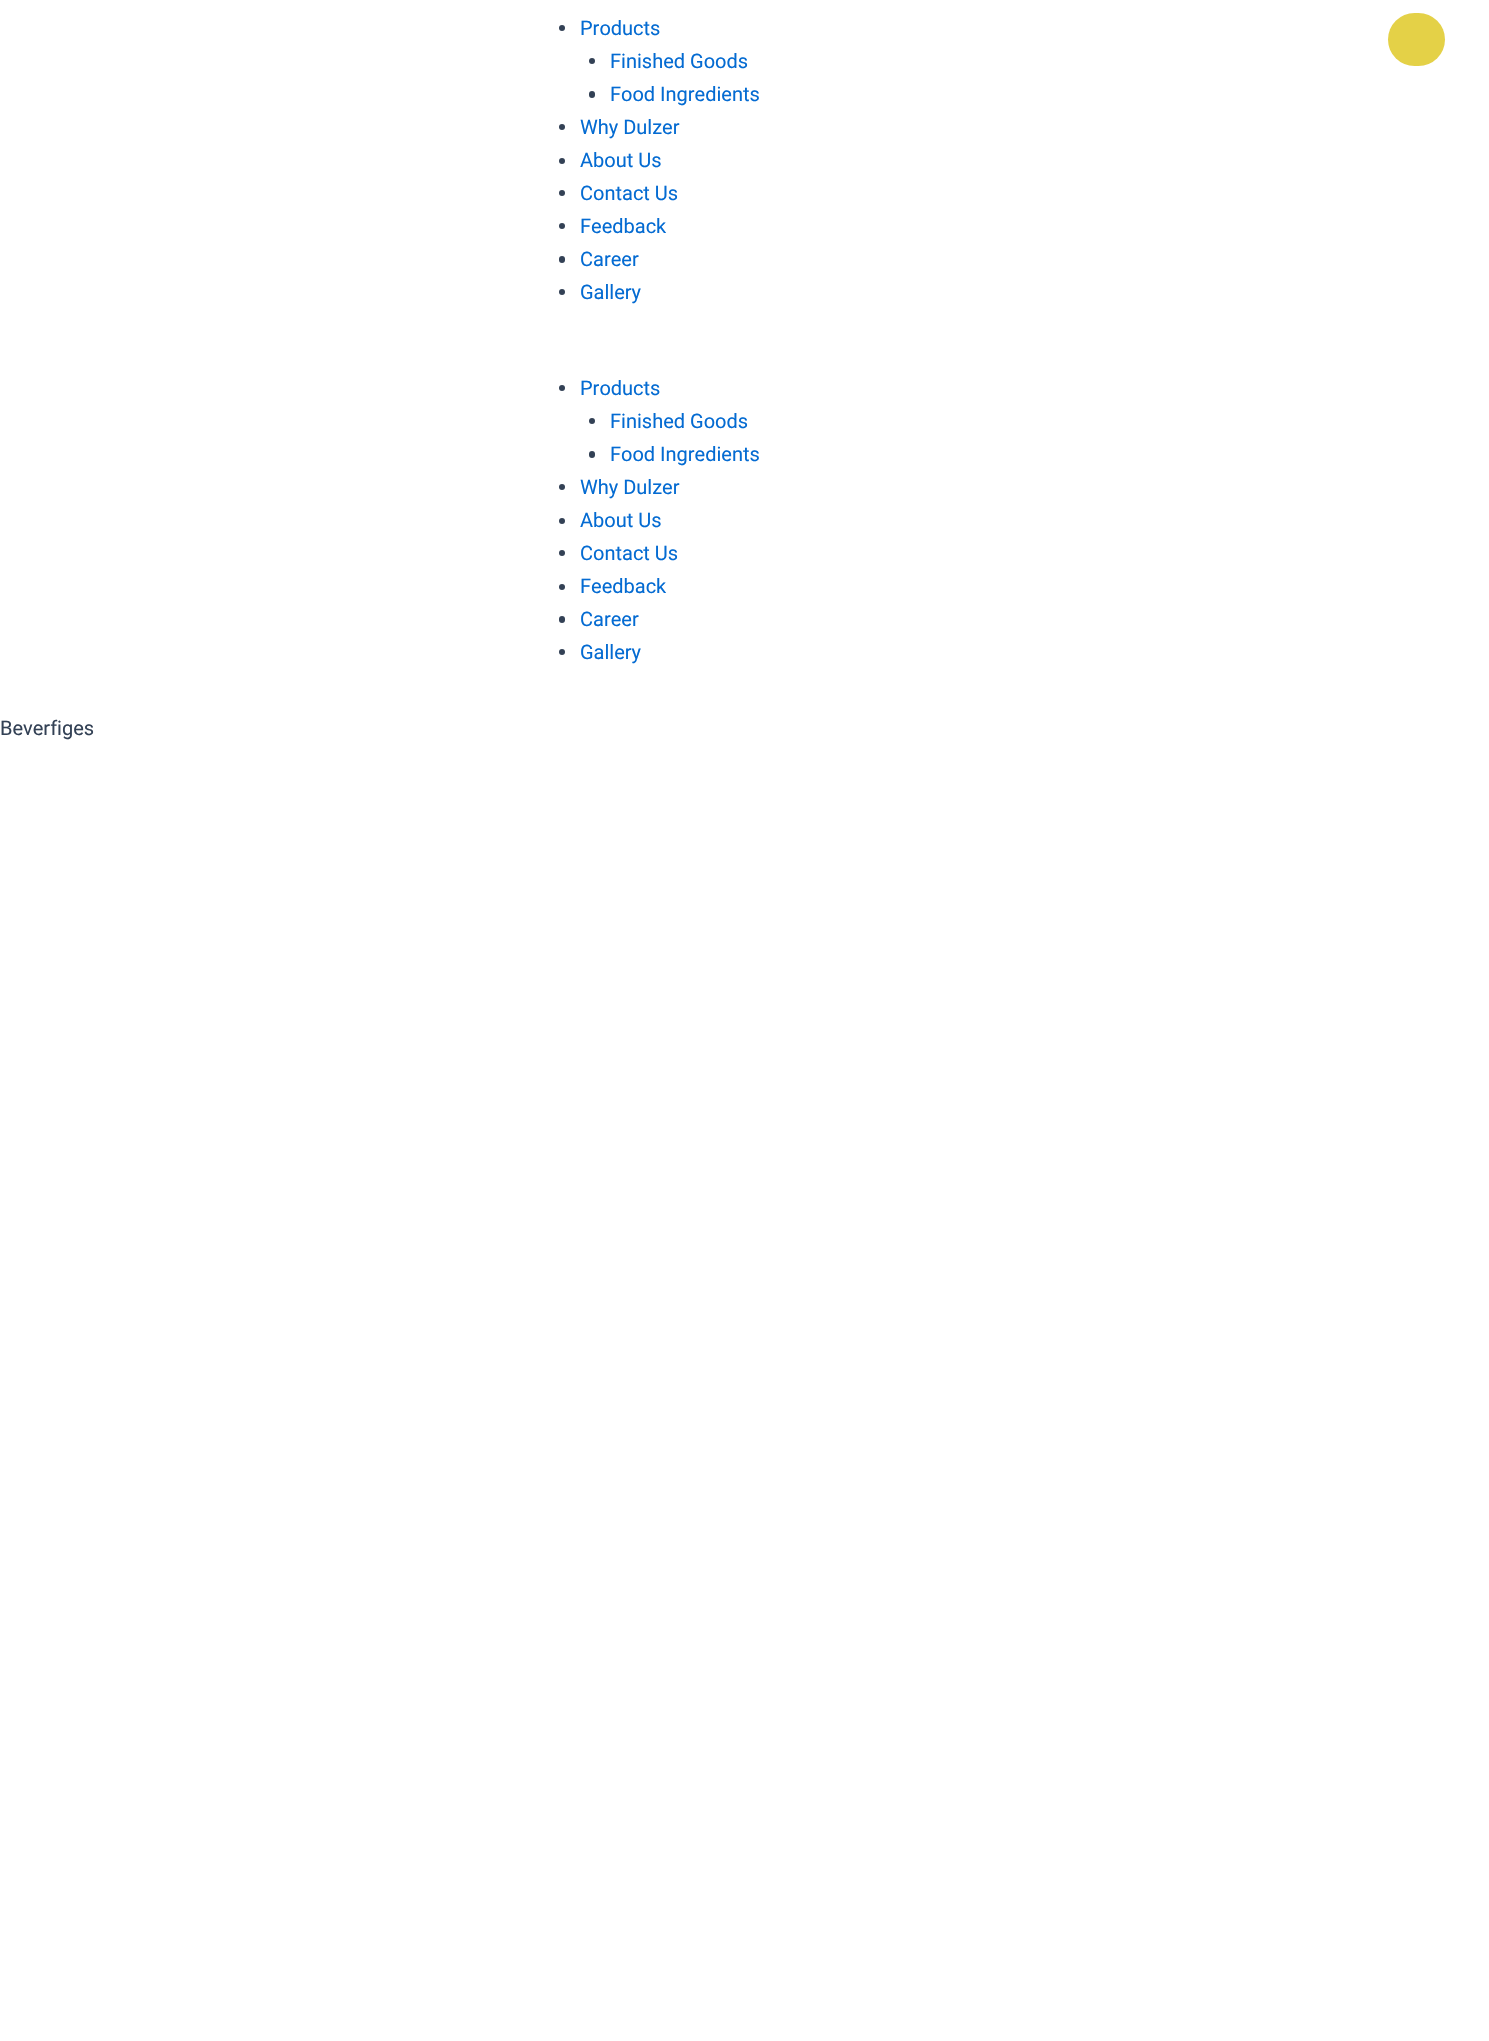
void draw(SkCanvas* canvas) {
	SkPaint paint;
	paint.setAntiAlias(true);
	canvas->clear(0xffffffff);
	paint.setColor(0xff334155);
	canvas->drawCircle(562, 28, 3, paint);
	SkFont f1(fontMgr->matchFamilyStyle("Roboto", SkFontStyle::Normal()), 20);
	f1.setSubpixel(true);
	paint.setColor(0xff046bd2);
	canvas->drawString("Products", 580, 35, f1, paint);
	paint.setColor(0xff334155);
	canvas->drawCircle(592, 61, 3, paint);
	paint.setColor(0xff046bd2);
	canvas->drawString("Finished Goods", 610, 68, f1, paint);
	paint.setColor(0xff334155);
	canvas->drawRoundRect(SkRect::MakeXYWH(589, 91, 6, 7), 3, 3, paint);
	paint.setColor(0xff046bd2);
	canvas->drawString("Food Ingredients", 610, 101, f1, paint);
	paint.setColor(0xff334155);
	canvas->drawCircle(562, 127, 3, paint);
	paint.setColor(0xff046bd2);
	canvas->drawString("Why Dulzer", 580, 134, f1, paint);
	paint.setColor(0xff334155);
	canvas->drawCircle(562, 161, 3, paint);
	paint.setColor(0xff046bd2);
	canvas->drawString("About Us", 580, 167, f1, paint);
	paint.setColor(0xff334155);
	canvas->drawCircle(562, 193, 3, paint);
	paint.setColor(0xff046bd2);
	canvas->drawString("Contact Us", 580, 200, f1, paint);
	paint.setColor(0xff334155);
	canvas->drawCircle(562, 226, 3, paint);
	paint.setColor(0xff046bd2);
	canvas->drawString("Feedback", 580, 233, f1, paint);
	paint.setColor(0xff334155);
	canvas->drawRoundRect(SkRect::MakeXYWH(559, 256, 6, 7), 3, 3, paint);
	paint.setColor(0xff046bd2);
	canvas->drawString("Career", 580, 266, f1, paint);
	paint.setColor(0xff334155);
	canvas->drawCircle(562, 292, 3, paint);
	paint.setColor(0xff046bd2);
	canvas->drawString("Gallery", 580, 299, f1, paint);
	paint.setColor(0xff334155);
	canvas->drawCircle(562, 388, 3, paint);
	paint.setColor(0xff046bd2);
	canvas->drawString("Products", 580, 395, f1, paint);
	paint.setColor(0xff334155);
	canvas->drawCircle(592, 421, 3, paint);
	paint.setColor(0xff046bd2);
	canvas->drawString("Finished Goods", 610, 428, f1, paint);
	paint.setColor(0xff334155);
	canvas->drawRoundRect(SkRect::MakeXYWH(589, 451, 6, 7), 3, 3, paint);
	paint.setColor(0xff046bd2);
	canvas->drawString("Food Ingredients", 610, 461, f1, paint);
	paint.setColor(0xff334155);
	canvas->drawCircle(562, 487, 3, paint);
	paint.setColor(0xff046bd2);
	canvas->drawString("Why Dulzer", 580, 494, f1, paint);
	paint.setColor(0xff334155);
	canvas->drawCircle(562, 521, 3, paint);
	paint.setColor(0xff046bd2);
	canvas->drawString("About Us", 580, 527, f1, paint);
	paint.setColor(0xff334155);
	canvas->drawCircle(562, 553, 3, paint);
	paint.setColor(0xff046bd2);
	canvas->drawString("Contact Us", 580, 560, f1, paint);
	paint.setColor(0xff334155);
	canvas->drawCircle(562, 587, 3, paint);
	paint.setColor(0xff046bd2);
	canvas->drawString("Feedback", 580, 593, f1, paint);
	paint.setColor(0xff334155);
	canvas->drawRoundRect(SkRect::MakeXYWH(559, 616, 6, 7), 3, 3, paint);
	paint.setColor(0xff046bd2);
	canvas->drawString("Career", 580, 626, f1, paint);
	paint.setColor(0xff334155);
	canvas->drawCircle(562, 652, 3, paint);
	paint.setColor(0xff046bd2);
	canvas->drawString("Gallery", 580, 659, f1, paint);
	paint.setColor(0xffe4d147);
	canvas->drawRoundRect(SkRect::MakeXYWH(1388, 13, 57, 53), 26.5, 26.5, paint);
	paint.setColor(0xff334155);
	canvas->drawString("Beverfiges", 0, 735, f1, paint);
}
